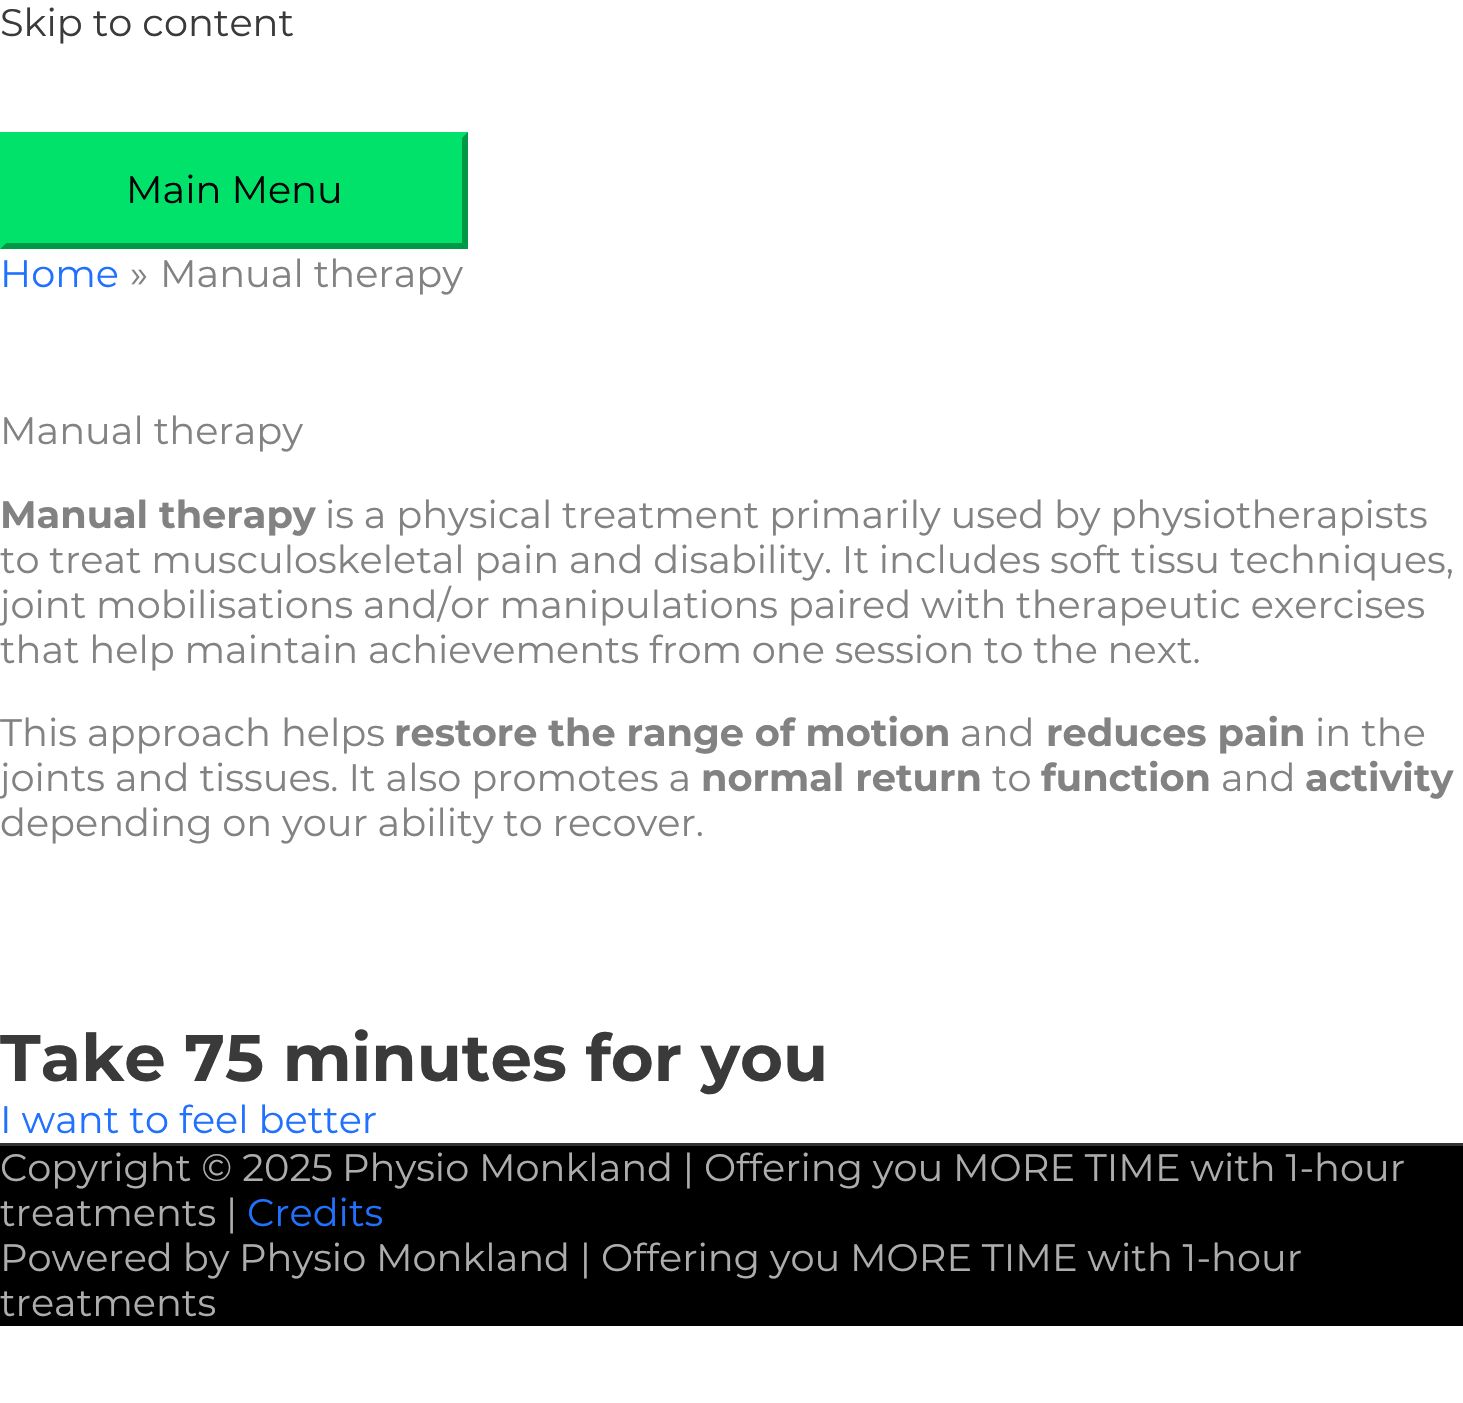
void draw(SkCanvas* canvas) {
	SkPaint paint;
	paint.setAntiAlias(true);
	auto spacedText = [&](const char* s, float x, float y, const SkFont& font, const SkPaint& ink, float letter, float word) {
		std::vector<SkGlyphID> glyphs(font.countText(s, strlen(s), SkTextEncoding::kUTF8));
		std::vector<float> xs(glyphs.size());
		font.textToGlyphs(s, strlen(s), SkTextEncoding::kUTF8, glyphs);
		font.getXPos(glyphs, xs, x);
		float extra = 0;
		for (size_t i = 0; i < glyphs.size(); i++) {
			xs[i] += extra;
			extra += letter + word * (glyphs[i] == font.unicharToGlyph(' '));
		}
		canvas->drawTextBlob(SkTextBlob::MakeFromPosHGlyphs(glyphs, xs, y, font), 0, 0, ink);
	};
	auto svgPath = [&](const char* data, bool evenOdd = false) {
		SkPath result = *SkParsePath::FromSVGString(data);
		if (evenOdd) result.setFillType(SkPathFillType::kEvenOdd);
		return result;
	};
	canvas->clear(0xffffffff);
	SkFont f1(fontMgr->matchFamilyStyle("Montserrat", SkFontStyle::Normal()), 38.3);
	f1.setSubpixel(true);
	paint.setColor(0xff3a3a3a);
	canvas->drawString("Skip to content", 0, 36, f1, paint);
	paint.setColor(0xff00e269);
	canvas->drawRect(SkRect::MakeXYWH(0, 132, 468, 117), paint);
	paint.setColor(0xff009746);
	canvas->drawPath(svgPath("M468 132V249L462 243V138Z"), paint);
	canvas->drawPath(svgPath("M468 249H0L6 243H462Z"), paint);
	paint.setColor(0xff00e269);
	canvas->drawPath(svgPath("M0 249V132L6 138V243Z"), paint);
	paint.setColor(0xff000000);
	canvas->drawString("Main Menu", 126, 203, f1, paint);
	paint.setColor(0xff2171ff);
	canvas->drawString("Home", 0, 287, f1, paint);
	paint.setColor(0xff828282);
	canvas->drawString("»", 130, 287, f1, paint);
	canvas->drawString("Manual therapy", 160, 287, f1, paint);
	canvas->drawString("Manual therapy", 0, 444, f1, paint);
	SkFont f2(fontMgr->matchFamilyStyle("Montserrat", SkFontStyle::Bold()), 38.3);
	f2.setSubpixel(true);
	canvas->drawString("Manual therapy", 0, 528, f2, paint);
	spacedText("is a physical treatment primarily used by physiotherapists", 325, 528, f1, paint, 0, -0.25);
	spacedText("to treat musculoskeletal pain and disability. It includes soft tissu techniques,", 0, 573, f1, paint, 0, -0.25);
	spacedText("joint mobilisations and/or manipulations paired with therapeutic exercises", 0, 618, f1, paint, 0, -0.25);
	spacedText("that help maintain achievements from one session to the next.", 0, 663, f1, paint, 0, -0.25);
	canvas->drawString("This approach helps", 0, 746, f1, paint);
	canvas->drawString("restore the range of motion", 394, 746, f2, paint);
	canvas->drawString("and", 960, 746, f1, paint);
	canvas->drawString("reduces pain", 1046, 746, f2, paint);
	canvas->drawString("in the", 1315, 746, f1, paint);
	canvas->drawString("joints and tissues. It also promotes a", 0, 791, f1, paint);
	canvas->drawString("normal return", 701, 791, f2, paint);
	canvas->drawString("to", 992, 791, f1, paint);
	canvas->drawString("function", 1041, 791, f2, paint);
	canvas->drawString("and", 1221, 791, f1, paint);
	canvas->drawString("activity", 1305, 791, f2, paint);
	spacedText("depending on your ability to recover.", 0, 836, f1, paint, 0, -0.25);
	SkFont f3(fontMgr->matchFamilyStyle("Montserrat", SkFontStyle::Bold()), 65.7);
	f3.setSubpixel(true);
	paint.setColor(0xff3a3a3a);
	canvas->drawString("Take 75 minutes for you", 0, 1081, f3, paint);
	paint.setColor(0xff2171ff);
	canvas->drawString("I want to feel better", 0, 1133, f1, paint);
	paint.setColor(0xff333333);
	canvas->drawRect(SkRect::MakeXYWH(0, 1143, 1463, 3), paint);
	paint.setColor(0xff000000);
	canvas->drawRect(SkRect::MakeXYWH(0, 1146, 1463, 180), paint);
	paint.setColor(0xffadadad);
	canvas->drawString("Copyright © 2025", 0, 1181, f1, paint);
	spacedText("Physio Monkland ǀ Offering you MORE TIME with 1-hour", 342, 1181, f1, paint, 0, -0.25);
	canvas->drawString("treatments |", 0, 1226, f1, paint);
	paint.setColor(0xff2171ff);
	canvas->drawString("Credits", 247, 1226, f1, paint);
	paint.setColor(0xffadadad);
	canvas->drawString("Powered by", 0, 1271, f1, paint);
	spacedText("Physio Monkland ǀ Offering you MORE TIME with 1-hour", 239, 1271, f1, paint, 0, -0.25);
	canvas->drawString("treatments", 0, 1316, f1, paint);
}
